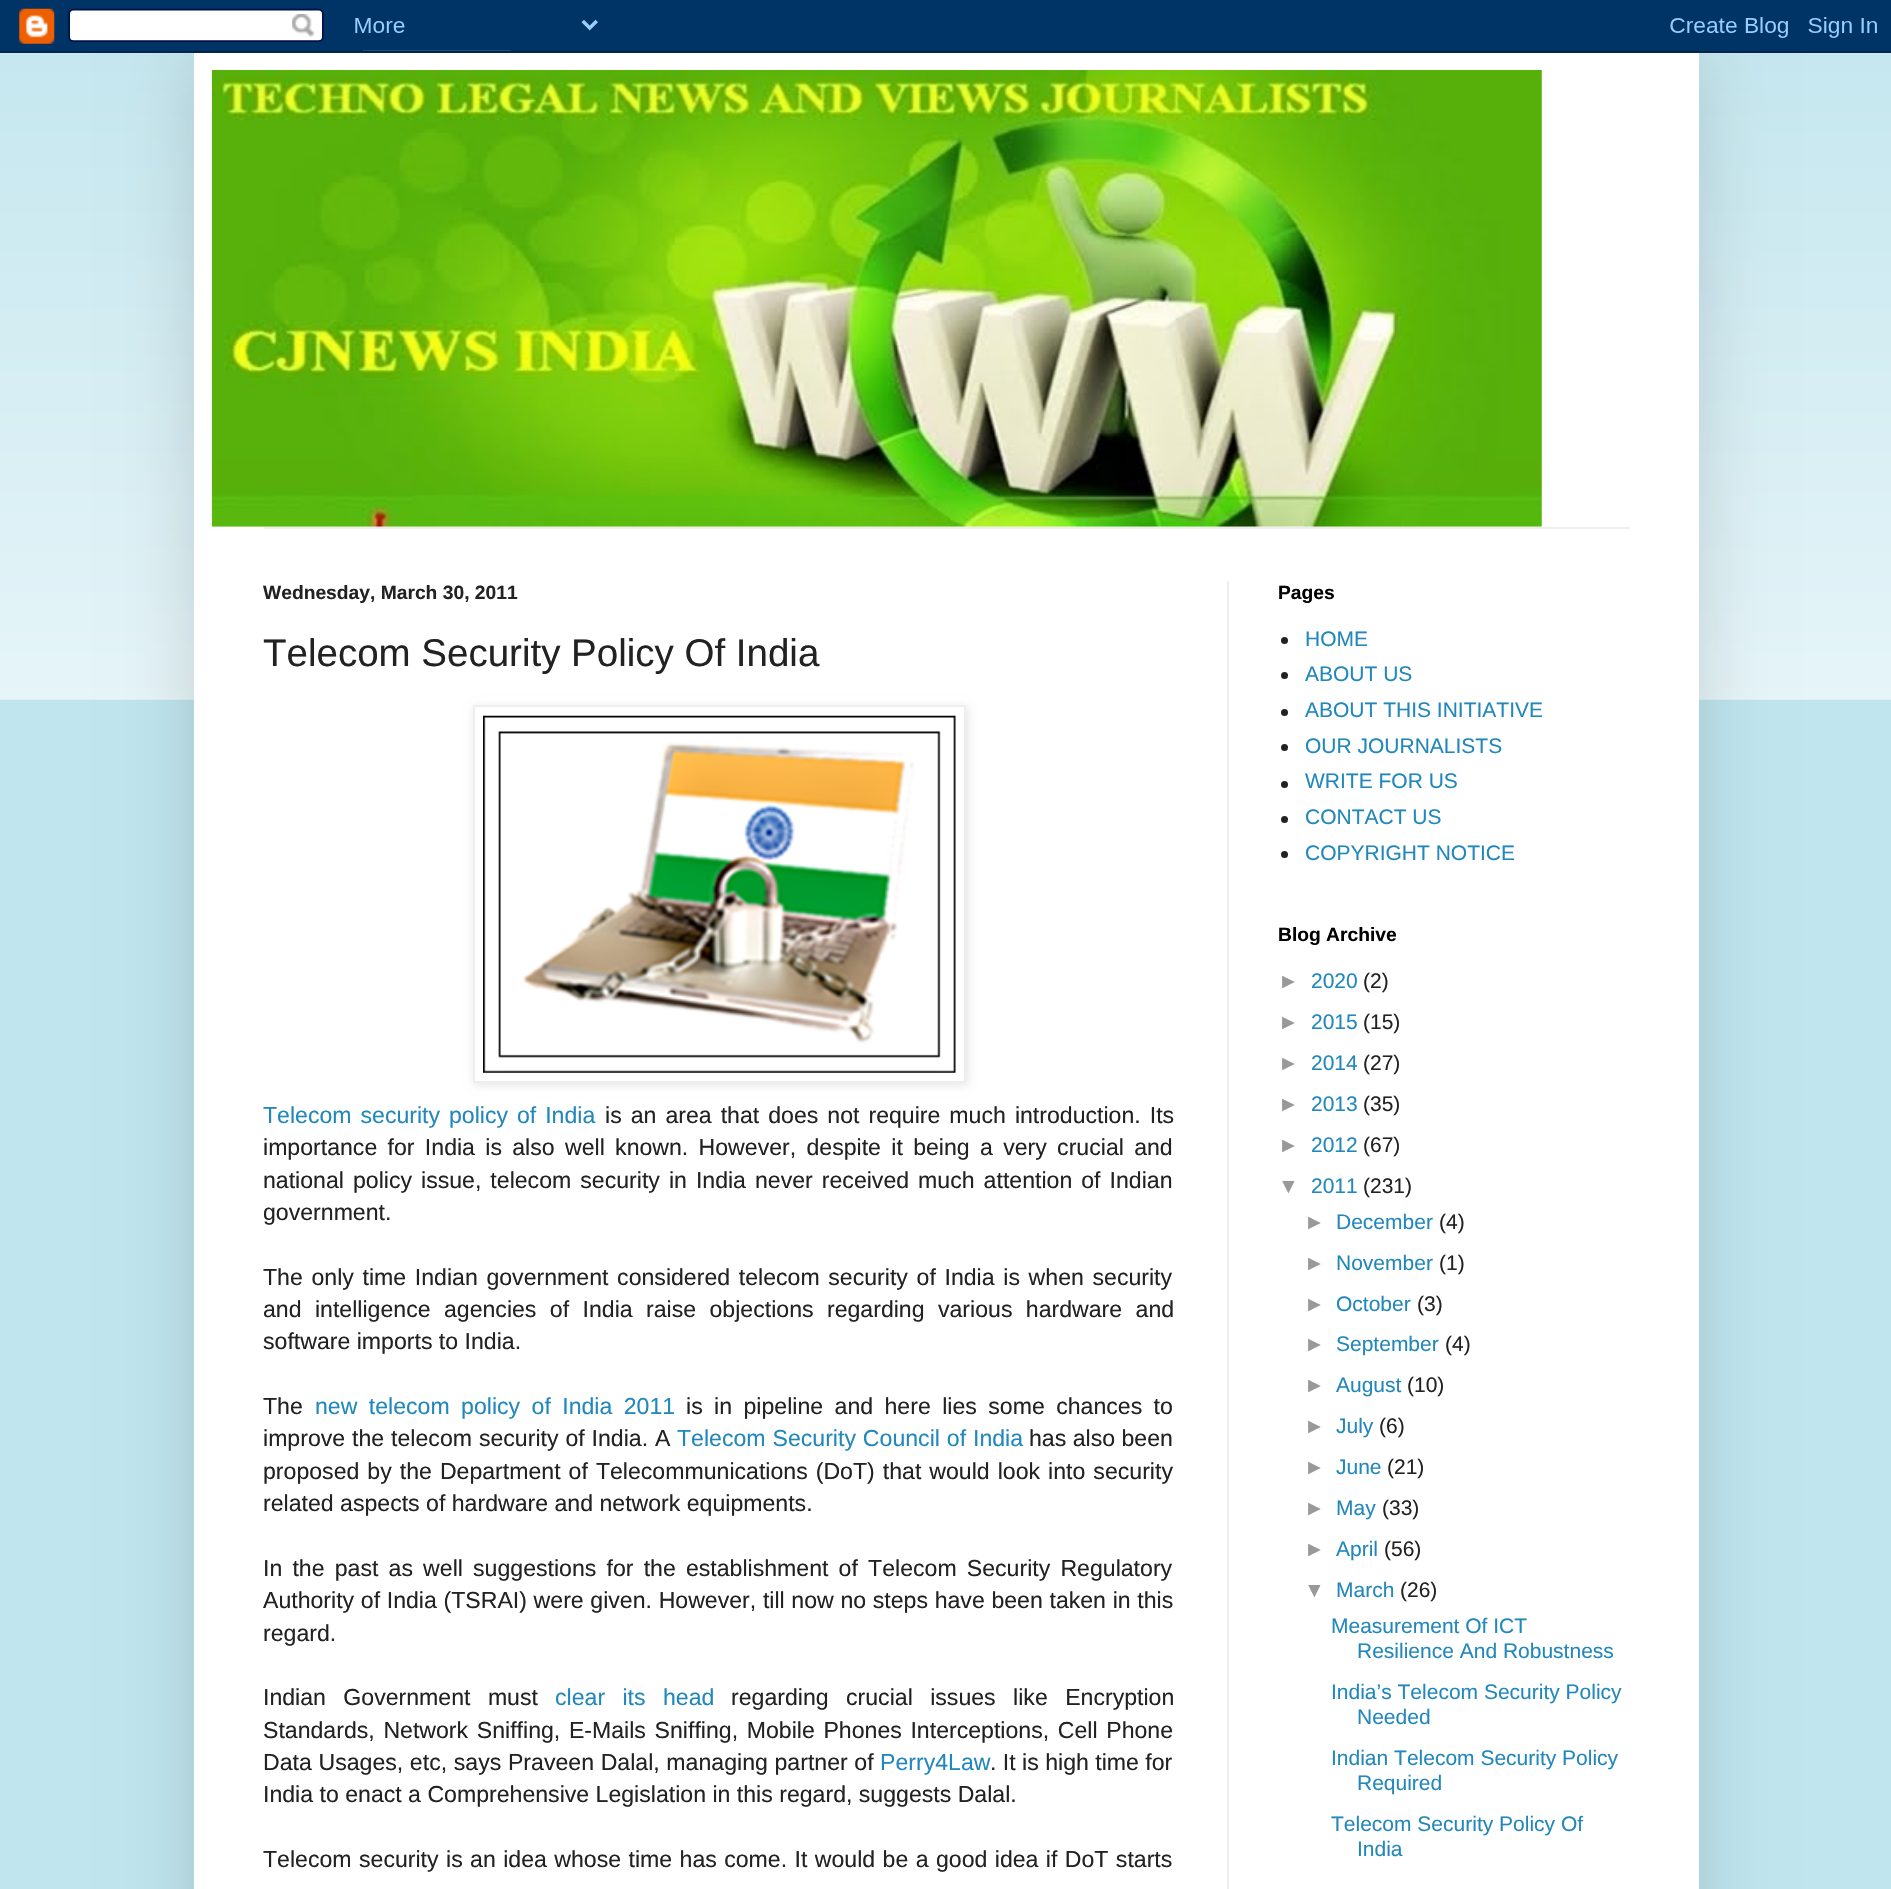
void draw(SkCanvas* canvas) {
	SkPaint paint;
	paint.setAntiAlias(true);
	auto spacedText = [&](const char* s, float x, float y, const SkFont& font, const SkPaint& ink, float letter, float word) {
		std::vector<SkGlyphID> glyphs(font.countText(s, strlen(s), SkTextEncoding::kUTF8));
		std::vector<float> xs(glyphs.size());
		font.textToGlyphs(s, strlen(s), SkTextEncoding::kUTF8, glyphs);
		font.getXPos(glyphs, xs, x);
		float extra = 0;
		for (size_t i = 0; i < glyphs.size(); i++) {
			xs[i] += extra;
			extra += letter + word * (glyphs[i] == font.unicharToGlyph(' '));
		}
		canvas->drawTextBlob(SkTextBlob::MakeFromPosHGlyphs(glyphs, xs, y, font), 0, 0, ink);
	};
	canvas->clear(0xffc0e5ee);
	canvas->drawImageRect(SkImages::DeferredFromEncodedData(SkData::MakeFromFileName("img2.png")), SkRect::MakeXYWH(0, 50, 1891, 650), SkSamplingOptions());
	paint.setColor(0x26000000);
	paint.setMaskFilter(SkMaskFilter::MakeBlur(kNormal_SkBlurStyle, 35));
	canvas->drawRect(SkRect::MakeXYWH(194, 53, 1505, 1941), paint);
	paint.setMaskFilter(nullptr);
	canvas->drawImageRect(SkImages::DeferredFromEncodedData(SkData::MakeFromFileName("img1.png")), SkRect::MakeXYWH(0, 0, 1891, 53), SkSamplingOptions());
	paint.setColor(0xffffffff);
	canvas->drawRect(SkRect::MakeXYWH(194, 53, 1505, 1836), paint);
	canvas->drawImageRect(SkImages::DeferredFromEncodedData(SkData::MakeFromFileName("img3.png")), SkRect::MakeXYWH(211, 70, 1331, 457), SkSamplingOptions());
	paint.setColor(0xffeeeeee);
	canvas->drawRect(SkRect::MakeXYWH(264, 527, 1365, 2), paint);
	canvas->drawRect(SkRect::MakeXYWH(1227, 581, 2, 1308), paint);
	SkFont f1(fontMgr->matchFamilyStyle("Liberation Sans", SkFontStyle::Bold()), 19.25);
	f1.setSubpixel(true);
	paint.setColor(0xff222222);
	canvas->drawString("Wednesday, March 30, 2011", 263, 599, f1, paint);
	SkFont f2(fontMgr->matchFamilyStyle("Liberation Sans", SkFontStyle::Normal()), 38.5);
	f2.setSubpixel(true);
	canvas->drawString("Telecom Security Policy Of India", 263, 666, f2, paint);
	paint.setColor(0x1a000000);
	paint.setMaskFilter(SkMaskFilter::MakeBlur(kNormal_SkBlurStyle, 4.5));
	canvas->drawRect(SkRect::MakeXYWH(474, 707, 494, 378), paint);
	paint.setMaskFilter(nullptr);
	paint.setColor(0xffffffff);
	canvas->drawRect(SkRect::MakeXYWH(474, 706, 491, 376), paint);
	paint.setStroke(true);
	paint.setStrokeWidth(2);
	paint.setColor(0xffeeeeee);
	canvas->drawRect(SkRect::MakeXYWH(474, 706, 491, 376), paint);
	canvas->drawImageRect(SkImages::DeferredFromEncodedData(SkData::MakeFromFileName("img4.png")), SkRect::MakeXYWH(483, 715, 473, 358), SkSamplingOptions());
	SkFont f3(fontMgr->matchFamilyStyle("Liberation Sans", SkFontStyle::Normal()), 23.1);
	f3.setSubpixel(true);
	paint.setStroke(false);
	paint.setColor(0xff2288bb);
	spacedText("Telecom security policy of India", 263, 1123, f3, paint, 0, 2.5);
	paint.setColor(0xff222222);
	spacedText("is an area that does not require much introduction. Its", 605, 1123, f3, paint, 0, 2.6);
	spacedText("importance for India is also well known. However, despite it being a very crucial and", 263, 1155, f3, paint, 0, 3.9);
	spacedText("national policy issue, telecom security in India never received much attention of Indian", 263, 1188, f3, paint, 0, 2.6);
	canvas->drawString("government.", 263, 1220, f3, paint);
	spacedText("The only time Indian government considered telecom security of India is when security", 263, 1285, f3, paint, 0, 2.25);
	spacedText("and intelligence agencies of India raise objections regarding various hardware and", 263, 1317, f3, paint, 0, 7);
	canvas->drawString("software imports to India.", 263, 1349, f3, paint);
	canvas->drawString("The", 263, 1414, f3, paint);
	paint.setColor(0xff2288bb);
	spacedText("new telecom policy of India 2011", 315, 1414, f3, paint, 0, 5);
	paint.setColor(0xff222222);
	spacedText("is in pipeline and here lies some chances to", 686, 1414, f3, paint, 0, 5);
	spacedText("improve the telecom security of India. A", 263, 1446, f3, paint, 0, 0.5);
	paint.setColor(0xff2288bb);
	spacedText("Telecom Security Council of India", 677, 1446, f3, paint, 0, 0.5);
	paint.setColor(0xff222222);
	canvas->drawString("has also been", 1029, 1446, f3, paint);
	spacedText("proposed by the Department of Telecommunications (DoT) that would look into security", 263, 1479, f3, paint, 0, 1.6);
	canvas->drawString("related aspects of hardware and network equipments.", 263, 1511, f3, paint);
	spacedText("In the past as well suggestions for the establishment of Telecom Security Regulatory", 263, 1576, f3, paint, 0, 3.75);
	spacedText("Authority of India (TSRAI) were given. However, till now no steps have been taken in this", 263, 1608, f3, paint, 0, 0.25);
	canvas->drawString("regard.", 263, 1641, f3, paint);
	spacedText("Indian Government must", 263, 1705, f3, paint, 0, 11);
	paint.setColor(0xff2288bb);
	spacedText("clear its head", 555, 1705, f3, paint, 0, 11);
	paint.setColor(0xff222222);
	spacedText("regarding crucial issues like Encryption", 731, 1705, f3, paint, 0, 11);
	spacedText("Standards, Network Sniffing, E-Mails Sniffing, Mobile Phones Interceptions, Cell Phone", 263, 1738, f3, paint, 0, 2.25);
	spacedText("Data Usages, etc, says Praveen Dalal, managing partner of", 263, 1770, f3, paint, 0, 0.25);
	paint.setColor(0xff2288bb);
	canvas->drawString("Perry4Law", 880, 1770, f3, paint);
	paint.setColor(0xff222222);
	canvas->drawString(". It is high time for", 990, 1770, f3, paint);
	canvas->drawString("India to enact a Comprehensive Legislation in this regard, suggests Dalal.", 263, 1802, f3, paint);
	spacedText("Telecom security is an idea whose time has come. It would be a good idea if DoT starts", 263, 1867, f3, paint, 0, 1);
	paint.setColor(0xff000000);
	canvas->drawString("Pages", 1278, 599, f1, paint);
	paint.setColor(0xff222222);
	canvas->drawCircle(1284.5, 640.5, 3.5, paint);
	SkFont f4(fontMgr->matchFamilyStyle("Liberation Sans", SkFontStyle::Normal()), 21);
	f4.setSubpixel(true);
	paint.setColor(0xff2288bb);
	canvas->drawString("HOME", 1305, 646, f4, paint);
	paint.setColor(0xff222222);
	canvas->drawCircle(1284.5, 675.5, 3.5, paint);
	paint.setColor(0xff2288bb);
	canvas->drawString("ABOUT US", 1305, 681, f4, paint);
	paint.setColor(0xff222222);
	canvas->drawCircle(1284.5, 712.5, 3.5, paint);
	paint.setColor(0xff2288bb);
	canvas->drawString("ABOUT THIS INITIATIVE", 1305, 717, f4, paint);
	paint.setColor(0xff222222);
	canvas->drawCircle(1284.5, 747.5, 3.5, paint);
	paint.setColor(0xff2288bb);
	canvas->drawString("OUR JOURNALISTS", 1305, 753, f4, paint);
	paint.setColor(0xff222222);
	canvas->drawCircle(1284.5, 784.5, 3.5, paint);
	paint.setColor(0xff2288bb);
	canvas->drawString("WRITE FOR US", 1305, 788, f4, paint);
	paint.setColor(0xff222222);
	canvas->drawCircle(1284.5, 819.5, 3.5, paint);
	paint.setColor(0xff2288bb);
	canvas->drawString("CONTACT US", 1305, 824, f4, paint);
	paint.setColor(0xff222222);
	canvas->drawCircle(1284.5, 854.5, 3.5, paint);
	paint.setColor(0xff2288bb);
	canvas->drawString("COPYRIGHT NOTICE", 1305, 860, f4, paint);
	paint.setColor(0xff000000);
	canvas->drawString("Blog Archive", 1278, 941, f1, paint);
	paint.setColor(0xff999999);
	canvas->drawString("►", 1278, 988, f4, paint);
	paint.setColor(0xff2288bb);
	canvas->drawString("2020", 1311, 988, f4, paint);
	paint.setColor(0xff222222);
	canvas->drawString("(2)", 1363, 988, f4, paint);
	paint.setColor(0xff999999);
	canvas->drawString("►", 1278, 1029, f4, paint);
	paint.setColor(0xff2288bb);
	canvas->drawString("2015", 1311, 1029, f4, paint);
	paint.setColor(0xff222222);
	canvas->drawString("(15)", 1363, 1029, f4, paint);
	paint.setColor(0xff999999);
	canvas->drawString("►", 1278, 1070, f4, paint);
	paint.setColor(0xff2288bb);
	canvas->drawString("2014", 1311, 1070, f4, paint);
	paint.setColor(0xff222222);
	canvas->drawString("(27)", 1363, 1070, f4, paint);
	paint.setColor(0xff999999);
	canvas->drawString("►", 1278, 1111, f4, paint);
	paint.setColor(0xff2288bb);
	canvas->drawString("2013", 1311, 1111, f4, paint);
	paint.setColor(0xff222222);
	canvas->drawString("(35)", 1363, 1111, f4, paint);
	paint.setColor(0xff999999);
	canvas->drawString("►", 1278, 1152, f4, paint);
	paint.setColor(0xff2288bb);
	canvas->drawString("2012", 1311, 1152, f4, paint);
	paint.setColor(0xff222222);
	canvas->drawString("(67)", 1363, 1152, f4, paint);
	paint.setColor(0xff999999);
	canvas->drawString("▼", 1278, 1193, f4, paint);
	paint.setColor(0xff2288bb);
	canvas->drawString("2011", 1311, 1193, f4, paint);
	paint.setColor(0xff222222);
	canvas->drawString("(231)", 1363, 1193, f4, paint);
	paint.setColor(0xff999999);
	canvas->drawString("►", 1304, 1229, f4, paint);
	paint.setColor(0xff2288bb);
	canvas->drawString("December", 1336, 1229, f4, paint);
	paint.setColor(0xff222222);
	canvas->drawString("(4)", 1439, 1229, f4, paint);
	paint.setColor(0xff999999);
	canvas->drawString("►", 1304, 1270, f4, paint);
	paint.setColor(0xff2288bb);
	canvas->drawString("November", 1336, 1270, f4, paint);
	paint.setColor(0xff222222);
	canvas->drawString("(1)", 1439, 1270, f4, paint);
	paint.setColor(0xff999999);
	canvas->drawString("►", 1304, 1311, f4, paint);
	paint.setColor(0xff2288bb);
	canvas->drawString("October", 1336, 1311, f4, paint);
	paint.setColor(0xff222222);
	canvas->drawString("(3)", 1417, 1311, f4, paint);
	paint.setColor(0xff999999);
	canvas->drawString("►", 1304, 1351, f4, paint);
	paint.setColor(0xff2288bb);
	canvas->drawString("September", 1336, 1351, f4, paint);
	paint.setColor(0xff222222);
	canvas->drawString("(4)", 1445, 1351, f4, paint);
	paint.setColor(0xff999999);
	canvas->drawString("►", 1304, 1392, f4, paint);
	paint.setColor(0xff2288bb);
	canvas->drawString("August", 1336, 1392, f4, paint);
	paint.setColor(0xff222222);
	canvas->drawString("(10)", 1407, 1392, f4, paint);
	paint.setColor(0xff999999);
	canvas->drawString("►", 1304, 1433, f4, paint);
	paint.setColor(0xff2288bb);
	canvas->drawString("July", 1336, 1433, f4, paint);
	paint.setColor(0xff222222);
	canvas->drawString("(6)", 1379, 1433, f4, paint);
	paint.setColor(0xff999999);
	canvas->drawString("►", 1304, 1474, f4, paint);
	paint.setColor(0xff2288bb);
	canvas->drawString("June", 1336, 1474, f4, paint);
	paint.setColor(0xff222222);
	canvas->drawString("(21)", 1387, 1474, f4, paint);
	paint.setColor(0xff999999);
	canvas->drawString("►", 1304, 1515, f4, paint);
	paint.setColor(0xff2288bb);
	canvas->drawString("May", 1336, 1515, f4, paint);
	paint.setColor(0xff222222);
	canvas->drawString("(33)", 1382, 1515, f4, paint);
	paint.setColor(0xff999999);
	canvas->drawString("►", 1304, 1556, f4, paint);
	paint.setColor(0xff2288bb);
	canvas->drawString("April", 1336, 1556, f4, paint);
	paint.setColor(0xff222222);
	canvas->drawString("(56)", 1384, 1556, f4, paint);
	paint.setColor(0xff999999);
	canvas->drawString("▼", 1304, 1597, f4, paint);
	paint.setColor(0xff2288bb);
	canvas->drawString("March", 1336, 1597, f4, paint);
	paint.setColor(0xff222222);
	canvas->drawString("(26)", 1400, 1597, f4, paint);
	paint.setColor(0xff2288bb);
	canvas->drawString("Measurement Of ICT", 1331, 1633, f4, paint);
	canvas->drawString("Resilience And Robustness", 1357, 1658, f4, paint);
	canvas->drawString("India’s Telecom Security Policy", 1331, 1699, f4, paint);
	canvas->drawString("Needed", 1357, 1724, f4, paint);
	canvas->drawString("Indian Telecom Security Policy", 1331, 1765, f4, paint);
	canvas->drawString("Required", 1357, 1790, f4, paint);
	canvas->drawString("Telecom Security Policy Of", 1331, 1831, f4, paint);
	canvas->drawString("India", 1357, 1856, f4, paint);
}
